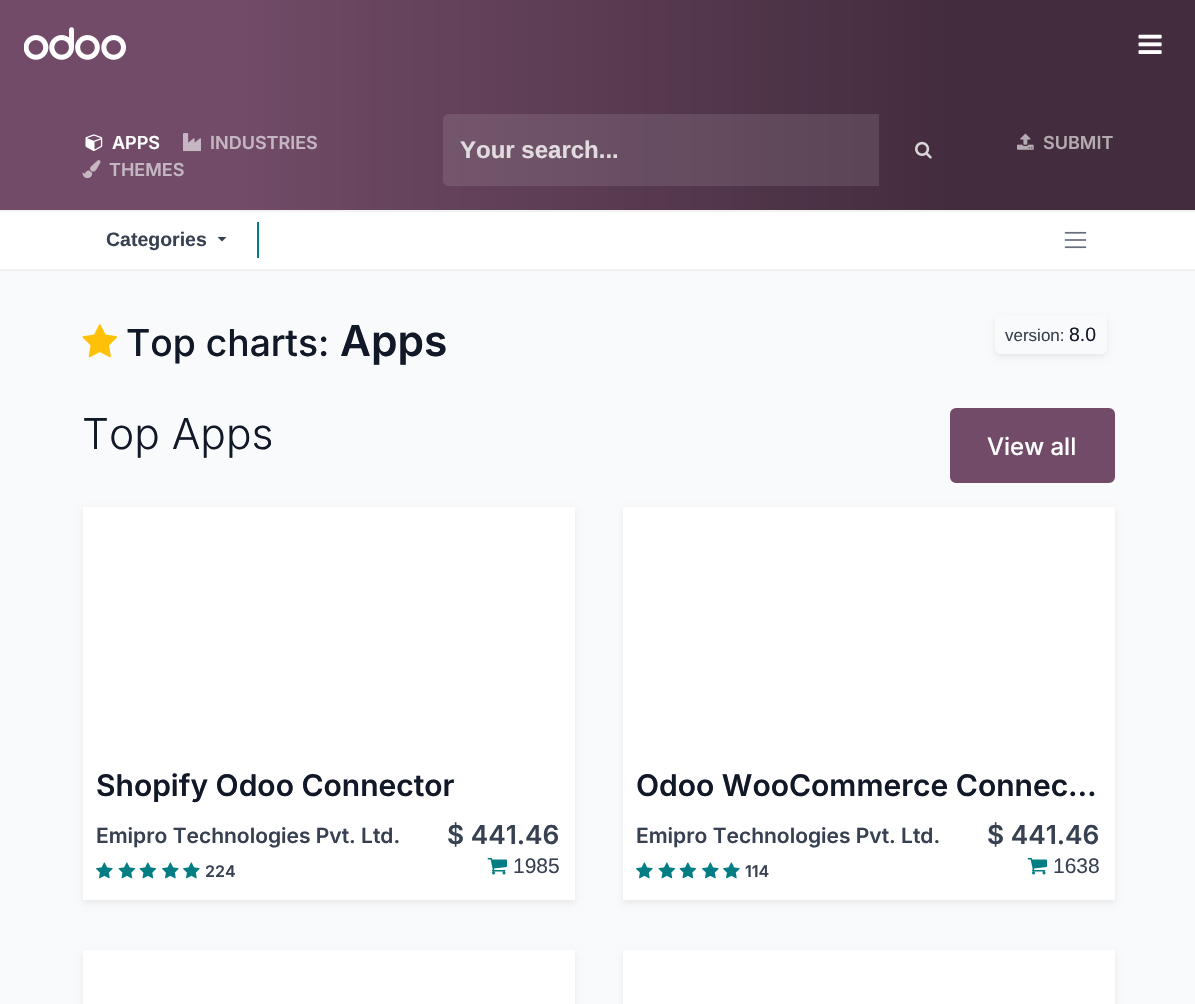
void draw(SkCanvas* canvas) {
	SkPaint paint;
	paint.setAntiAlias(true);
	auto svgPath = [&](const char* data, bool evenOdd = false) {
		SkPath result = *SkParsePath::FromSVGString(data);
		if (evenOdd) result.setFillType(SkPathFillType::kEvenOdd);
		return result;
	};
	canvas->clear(0xfff9fafb);
	{
		const SkColor colors[] = {0xff714b67, 0xff432c3d};
		const float stops[] = {0.2, 0.8};
		const SkPoint ends[] = {{0, 135}, {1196, 135}};
		paint.setShader(SkGradientShader::MakeLinear(ends, colors, stops, 2, SkTileMode::kClamp));
		paint.setAlpha(255);
	}
	canvas->drawRect(SkRect::MakeXYWH(0, 0, 1195, 210), paint);
	canvas->drawImageRect(SkImages::DeferredFromEncodedData(SkData::MakeFromFileName("img1.png")), SkRect::MakeXYWH(24, 27, 102, 33), SkSamplingOptions());
	canvas->drawImageRect(SkImages::DeferredFromEncodedData(SkData::MakeFromFileName("img2.png")), SkRect::MakeXYWH(1138, 34, 24, 20), SkSamplingOptions());
	canvas->drawImageRect(SkImages::DeferredFromEncodedData(SkData::MakeFromFileName("img3.png")), SkRect::MakeXYWH(85, 134, 18, 17), SkSamplingOptions());
	SkFont f1(fontMgr->matchFamilyStyle("Inter", SkFontStyle(600, SkFontStyle::kNormal_Width, SkFontStyle::kUpright_Slant)), 18);
	f1.setSubpixel(true);
	paint.setShader(nullptr);
	paint.setColor(0xffffffff);
	canvas->drawString("APPS", 112, 149, f1, paint);
	canvas->drawImageRect(SkImages::DeferredFromEncodedData(SkData::MakeFromFileName("img4.png")), SkRect::MakeXYWH(183, 133, 18, 19), SkSamplingOptions());
	paint.setColor(0xffc5b7c2);
	canvas->drawString("INDUSTRIES", 210, 149, f1, paint);
	canvas->drawImageRect(SkImages::DeferredFromEncodedData(SkData::MakeFromFileName("img5.png")), SkRect::MakeXYWH(82, 160, 19, 19), SkSamplingOptions());
	canvas->drawString("THEMES", 109, 176, f1, paint);
	paint.setColor(0x1affffff);
	canvas->drawPath(svgPath("M449 114H879V186H449C445.5 186 443 183.5 443 180V120C443 116.5 445.5 114 449 114Z"), paint);
	SkFont f2(fontMgr->matchFamilyStyle("Liberation Sans", SkFontStyle::Bold()), 24);
	f2.setSubpixel(true);
	paint.setColor(0xffe2dce1);
	canvas->drawString("Your search...", 460, 158, f2, paint);
	canvas->drawImageRect(SkImages::DeferredFromEncodedData(SkData::MakeFromFileName("img6.png")), SkRect::MakeXYWH(915, 141, 17, 18), SkSamplingOptions());
	canvas->drawImageRect(SkImages::DeferredFromEncodedData(SkData::MakeFromFileName("img7.png")), SkRect::MakeXYWH(1017, 133, 17, 17), SkSamplingOptions());
	paint.setColor(0xffb4abb1);
	canvas->drawString("SUBMIT", 1043, 149, f1, paint);
	paint.setColor(0xffffffff);
	canvas->drawRect(SkRect::MakeXYWH(0, 212, 1195, 57), paint);
	paint.setColor(0xfff2f2f2);
	canvas->drawRect(SkRect::MakeXYWH(0, 269, 1195, 1), paint);
	canvas->drawRect(SkRect::MakeXYWH(0, 210, 1195, 2), paint);
	SkFont f3(fontMgr->matchFamilyStyle("Liberation Sans", SkFontStyle::Bold()), 19.5);
	f3.setSubpixel(true);
	paint.setColor(0xff374151);
	canvas->drawString("Categories", 106, 246, f3, paint);
	canvas->drawPath(svgPath("M217.5 237H226.5L222 241.5Z"), paint);
	paint.setColor(0xff017e84);
	canvas->drawRect(SkRect::MakeXYWH(257, 222, 2, 36), paint);
	canvas->drawImageRect(SkImages::DeferredFromEncodedData(SkData::MakeFromFileName("img8.png")), SkRect::MakeXYWH(1064, 231, 23, 18), SkSamplingOptions());
	paint.setColor(0xffedeeee);
	canvas->drawRect(SkRect::MakeXYWH(0, 270, 1195, 1), paint);
	canvas->drawImageRect(SkImages::DeferredFromEncodedData(SkData::MakeFromFileName("img9.png")), SkRect::MakeXYWH(82, 324, 35, 34), SkSamplingOptions());
	SkFont f4(fontMgr->matchFamilyStyle("Inter", SkFontStyle(500, SkFontStyle::kNormal_Width, SkFontStyle::kUpright_Slant)), 37.25);
	f4.setSubpixel(true);
	paint.setColor(0xff111827);
	canvas->drawString("Top charts:", 126, 356, f4, paint);
	SkFont f5(fontMgr->matchFamilyStyle("Inter", SkFontStyle(600, SkFontStyle::kNormal_Width, SkFontStyle::kUpright_Slant)), 42.5);
	f5.setSubpixel(true);
	canvas->drawString("Apps", 340, 356, f5, paint);
	canvas->save();
	canvas->clipPath(svgPath("M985 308H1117V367H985ZM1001 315H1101C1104.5 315 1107 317.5 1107 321V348C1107 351.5 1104.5 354 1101 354H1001C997.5 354 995 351.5 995 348V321C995 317.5 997.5 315 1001 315Z", true), true);
	paint.setColor(0x12000000);
	paint.setMaskFilter(SkMaskFilter::MakeBlur(kNormal_SkBlurStyle, 3));
	canvas->drawRoundRect(SkRect::MakeXYWH(995, 318, 112, 39), 6, 6, paint);
	paint.setMaskFilter(nullptr);
	canvas->restore();
	SkFont f6(fontMgr->matchFamilyStyle("Liberation Sans", SkFontStyle::Normal()), 17);
	f6.setSubpixel(true);
	paint.setColor(0xff374151);
	canvas->drawString("version:", 1005, 341, f6, paint);
	SkFont f7(fontMgr->matchFamilyStyle("Liberation Sans", SkFontStyle::Normal()), 19.5);
	f7.setSubpixel(true);
	paint.setColor(0xff111827);
	canvas->drawString("8.0", 1069, 341, f7, paint);
	SkFont f8(fontMgr->matchFamilyStyle("Inter", SkFontStyle(300, SkFontStyle::kNormal_Width, SkFontStyle::kUpright_Slant)), 42.5);
	f8.setSubpixel(true);
	canvas->drawString("Top Apps", 82, 449, f8, paint);
	paint.setColor(0xff714b67);
	canvas->drawRoundRect(SkRect::MakeXYWH(951, 409, 163, 73), 5, 5, paint);
	paint.setStroke(true);
	paint.setStrokeWidth(2);
	canvas->drawRoundRect(SkRect::MakeXYWH(951, 409, 163, 73), 5, 5, paint);
	SkFont f9(fontMgr->matchFamilyStyle("Inter", SkFontStyle(500, SkFontStyle::kNormal_Width, SkFontStyle::kUpright_Slant)), 24);
	f9.setSubpixel(true);
	paint.setStroke(false);
	paint.setColor(0xffffffff);
	canvas->drawString("View all", 987, 455, f9, paint);
	paint.setColor(0x12000000);
	paint.setMaskFilter(SkMaskFilter::MakeBlur(kNormal_SkBlurStyle, 3));
	canvas->drawRect(SkRect::MakeXYWH(83, 510, 492, 393), paint);
	paint.setMaskFilter(nullptr);
	paint.setColor(0xffffffff);
	canvas->drawRect(SkRect::MakeXYWH(83, 507, 492, 393), paint);
	SkFont f10(fontMgr->matchFamilyStyle("Inter", SkFontStyle(600, SkFontStyle::kNormal_Width, SkFontStyle::kUpright_Slant)), 30);
	f10.setSubpixel(true);
	paint.setColor(0xff111827);
	canvas->drawString("Shopify Odoo Connector", 96, 796, f10, paint);
	SkFont f11(fontMgr->matchFamilyStyle("Inter", SkFontStyle(600, SkFontStyle::kNormal_Width, SkFontStyle::kUpright_Slant)), 21);
	f11.setSubpixel(true);
	paint.setColor(0xff374151);
	canvas->drawString("Emipro Technologies Pvt. Ltd.", 96, 843, f11, paint);
	SkFont f12(fontMgr->matchFamilyStyle("Inter", SkFontStyle(600, SkFontStyle::kNormal_Width, SkFontStyle::kUpright_Slant)), 26.25);
	f12.setSubpixel(true);
	canvas->drawString("$ 441.46", 447, 844, f12, paint);
	canvas->drawImageRect(SkImages::DeferredFromEncodedData(SkData::MakeFromFileName("img10.png")), SkRect::MakeXYWH(96, 862, 17, 17), SkSamplingOptions());
	canvas->drawImageRect(SkImages::DeferredFromEncodedData(SkData::MakeFromFileName("img11.png")), SkRect::MakeXYWH(118, 862, 18, 17), SkSamplingOptions());
	canvas->drawImageRect(SkImages::DeferredFromEncodedData(SkData::MakeFromFileName("img11.png")), SkRect::MakeXYWH(139, 862, 18, 17), SkSamplingOptions());
	canvas->drawImageRect(SkImages::DeferredFromEncodedData(SkData::MakeFromFileName("img10.png")), SkRect::MakeXYWH(162, 862, 17, 17), SkSamplingOptions());
	canvas->drawImageRect(SkImages::DeferredFromEncodedData(SkData::MakeFromFileName("img10.png")), SkRect::MakeXYWH(183, 862, 17, 17), SkSamplingOptions());
	SkFont f13(fontMgr->matchFamilyStyle("Inter", SkFontStyle(600, SkFontStyle::kNormal_Width, SkFontStyle::kUpright_Slant)), 16);
	f13.setSubpixel(true);
	canvas->drawString("224", 205, 877, f13, paint);
	canvas->drawImageRect(SkImages::DeferredFromEncodedData(SkData::MakeFromFileName("img12.png")), SkRect::MakeXYWH(487, 858, 20, 17), SkSamplingOptions());
	SkFont f14(fontMgr->matchFamilyStyle("Liberation Sans", SkFontStyle::Normal()), 21);
	f14.setSubpixel(true);
	canvas->drawString("1985", 513, 873, f14, paint);
	paint.setColor(0x12000000);
	paint.setMaskFilter(SkMaskFilter::MakeBlur(kNormal_SkBlurStyle, 3));
	canvas->drawRect(SkRect::MakeXYWH(623, 510, 492, 393), paint);
	paint.setMaskFilter(nullptr);
	paint.setColor(0xffffffff);
	canvas->drawRect(SkRect::MakeXYWH(623, 507, 492, 393), paint);
	paint.setColor(0xff111827);
	canvas->drawString("Odoo WooCommerce Connec…", 636, 796, f10, paint);
	paint.setColor(0xff374151);
	canvas->drawString("Emipro Technologies Pvt. Ltd.", 636, 843, f11, paint);
	canvas->drawString("$ 441.46", 987, 844, f12, paint);
	canvas->drawImageRect(SkImages::DeferredFromEncodedData(SkData::MakeFromFileName("img10.png")), SkRect::MakeXYWH(636, 862, 17, 17), SkSamplingOptions());
	canvas->drawImageRect(SkImages::DeferredFromEncodedData(SkData::MakeFromFileName("img11.png")), SkRect::MakeXYWH(658, 862, 18, 17), SkSamplingOptions());
	canvas->drawImageRect(SkImages::DeferredFromEncodedData(SkData::MakeFromFileName("img11.png")), SkRect::MakeXYWH(679, 862, 18, 17), SkSamplingOptions());
	canvas->drawImageRect(SkImages::DeferredFromEncodedData(SkData::MakeFromFileName("img10.png")), SkRect::MakeXYWH(702, 862, 17, 17), SkSamplingOptions());
	canvas->drawImageRect(SkImages::DeferredFromEncodedData(SkData::MakeFromFileName("img10.png")), SkRect::MakeXYWH(723, 862, 17, 17), SkSamplingOptions());
	canvas->drawString("114", 745, 877, f13, paint);
	canvas->drawImageRect(SkImages::DeferredFromEncodedData(SkData::MakeFromFileName("img12.png")), SkRect::MakeXYWH(1027, 858, 20, 17), SkSamplingOptions());
	canvas->drawString("1638", 1053, 873, f14, paint);
	paint.setColor(0x12000000);
	paint.setMaskFilter(SkMaskFilter::MakeBlur(kNormal_SkBlurStyle, 3));
	canvas->drawRect(SkRect::MakeXYWH(83, 953, 492, 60), paint);
	paint.setMaskFilter(nullptr);
	paint.setColor(0xffffffff);
	canvas->drawRect(SkRect::MakeXYWH(83, 950, 492, 54), paint);
	paint.setColor(0x12000000);
	paint.setMaskFilter(SkMaskFilter::MakeBlur(kNormal_SkBlurStyle, 3));
	canvas->drawRect(SkRect::MakeXYWH(623, 953, 492, 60), paint);
	paint.setMaskFilter(nullptr);
	paint.setColor(0xffffffff);
	canvas->drawRect(SkRect::MakeXYWH(623, 950, 492, 54), paint);
}
